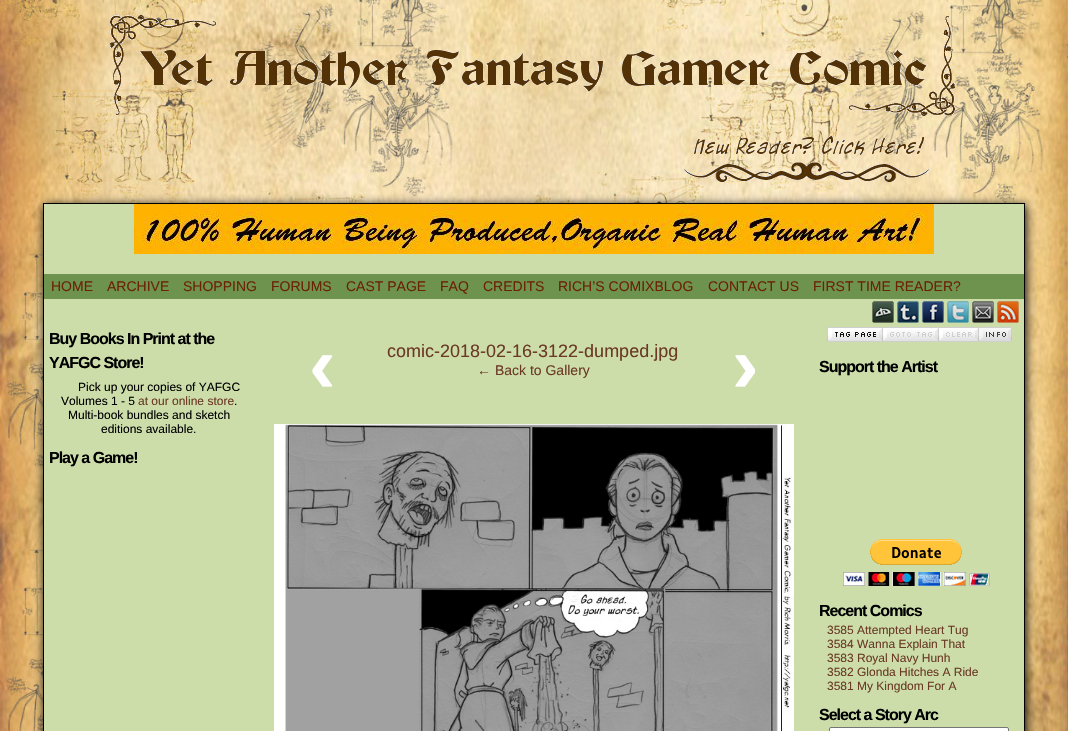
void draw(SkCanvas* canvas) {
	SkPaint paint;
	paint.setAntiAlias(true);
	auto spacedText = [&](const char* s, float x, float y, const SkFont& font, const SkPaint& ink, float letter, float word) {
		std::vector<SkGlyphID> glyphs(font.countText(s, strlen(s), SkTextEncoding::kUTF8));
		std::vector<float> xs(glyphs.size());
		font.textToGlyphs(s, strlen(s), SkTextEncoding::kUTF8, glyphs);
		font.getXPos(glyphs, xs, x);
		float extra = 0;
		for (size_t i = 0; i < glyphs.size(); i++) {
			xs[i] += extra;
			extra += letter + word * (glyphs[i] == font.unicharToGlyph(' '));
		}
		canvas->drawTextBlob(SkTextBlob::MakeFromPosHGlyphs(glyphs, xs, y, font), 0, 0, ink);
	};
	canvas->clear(0xffffffff);
	canvas->drawImageRect(SkImages::DeferredFromEncodedData(SkData::MakeFromFileName("img1.png")), SkRect::MakeXYWH(0, 0, 1068, 731), SkSamplingOptions());
	canvas->drawImageRect(SkImages::DeferredFromEncodedData(SkData::MakeFromFileName("img2.png")), SkRect::MakeXYWH(110, 15, 845, 167), SkSamplingOptions());
	paint.setColor(0xff000000);
	paint.setMaskFilter(SkMaskFilter::MakeBlur(kNormal_SkBlurStyle, 5));
	canvas->drawRect(SkRect::MakeXYWH(44, 205, 982, 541), paint);
	paint.setMaskFilter(nullptr);
	paint.setColor(0xffccddaa);
	canvas->drawRect(SkRect::MakeXYWH(43.5, 203.5, 981, 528), paint);
	paint.setStroke(true);
	paint.setStrokeWidth(1);
	paint.setColor(0xff000000);
	canvas->drawRect(SkRect::MakeXYWH(43.5, 203.5, 981, 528), paint);
	canvas->drawImageRect(SkImages::DeferredFromEncodedData(SkData::MakeFromFileName("img3.png")), SkRect::MakeXYWH(134, 204, 800, 50), SkSamplingOptions());
	paint.setStroke(false);
	paint.setColor(0xff6d934f);
	canvas->drawRect(SkRect::MakeXYWH(44, 274, 980, 25), paint);
	SkFont f1(fontMgr->matchFamilyStyle("Liberation Sans", SkFontStyle::Normal()), 14);
	f1.setSubpixel(true);
	paint.setColor(0xff6b2304);
	canvas->drawString("HOME", 51, 291, f1, paint);
	canvas->drawString("ARCHIVE", 107, 291, f1, paint);
	canvas->drawString("SHOPPING", 183, 291, f1, paint);
	canvas->drawString("FORUMS", 271, 291, f1, paint);
	canvas->drawString("CAST PAGE", 346, 291, f1, paint);
	canvas->drawString("FAQ", 440, 291, f1, paint);
	canvas->drawString("CREDITS", 483, 291, f1, paint);
	canvas->drawString("RICH’S COMIXBLOG", 558, 291, f1, paint);
	canvas->drawString("CONTACT US", 708, 291, f1, paint);
	canvas->drawString("FIRST TIME READER?", 813, 291, f1, paint);
	canvas->drawImageRect(SkImages::DeferredFromEncodedData(SkData::MakeFromFileName("img4.png")), SkRect::MakeXYWH(872, 301, 22, 22), SkSamplingOptions());
	canvas->drawImageRect(SkImages::DeferredFromEncodedData(SkData::MakeFromFileName("img5.png")), SkRect::MakeXYWH(897, 301, 22, 22), SkSamplingOptions());
	canvas->drawImageRect(SkImages::DeferredFromEncodedData(SkData::MakeFromFileName("img6.png")), SkRect::MakeXYWH(922, 301, 22, 22), SkSamplingOptions());
	canvas->drawImageRect(SkImages::DeferredFromEncodedData(SkData::MakeFromFileName("img7.png")), SkRect::MakeXYWH(947, 301, 22, 22), SkSamplingOptions());
	canvas->drawImageRect(SkImages::DeferredFromEncodedData(SkData::MakeFromFileName("img8.png")), SkRect::MakeXYWH(972, 301, 22, 22), SkSamplingOptions());
	canvas->drawImageRect(SkImages::DeferredFromEncodedData(SkData::MakeFromFileName("img9.png")), SkRect::MakeXYWH(997, 301, 22, 22), SkSamplingOptions());
	SkFont f2(fontMgr->matchFamilyStyle("Liberation Sans", SkFontStyle::Bold()), 16);
	f2.setSubpixel(true);
	paint.setColor(0xff000000);
	spacedText("Buy Books In Print at the", 49, 344, f2, paint, -1, 0);
	spacedText("YAFGC Store!", 49, 368, f2, paint, -1, 0);
	SkFont f3(fontMgr->matchFamilyStyle("Liberation Sans", SkFontStyle::Normal()), 12);
	f3.setSubpixel(true);
	canvas->drawString("Pick up your copies of YAFGC", 78, 391, f3, paint);
	canvas->drawString("Volumes 1 - 5", 61, 405, f3, paint);
	paint.setColor(0xff6b3a25);
	canvas->drawString("at our online store", 138, 405, f3, paint);
	paint.setColor(0xff000000);
	canvas->drawString(".", 234, 405, f3, paint);
	canvas->drawString("Multi-book bundles and sketch", 68, 419, f3, paint);
	canvas->drawString("editions available.", 101, 433, f3, paint);
	spacedText("Play a Game!", 49, 463, f2, paint, -1, 0);
	SkFont f4(fontMgr->matchFamilyStyle("Liberation Sans", SkFontStyle::Bold()), 80);
	f4.setSubpixel(true);
	paint.setColor(0xffffffff);
	canvas->drawString("‹", 309, 392, f4, paint);
	SkFont f5(fontMgr->matchFamilyStyle("Liberation Sans", SkFontStyle::Normal()), 18);
	f5.setSubpixel(true);
	paint.setColor(0xff6b3a25);
	canvas->drawString("comic-2018-02-16-3122-dumped.jpg", 387, 357, f5, paint);
	canvas->drawString("← Back to Gallery", 477, 375, f1, paint);
	paint.setColor(0xffffffff);
	canvas->drawString("›", 732, 392, f4, paint);
	canvas->drawImageRect(SkImages::DeferredFromEncodedData(SkData::MakeFromFileName("img10.png")), SkRect::MakeXYWH(274, 424, 520, 307), SkSamplingOptions());
	canvas->drawImageRect(SkImages::DeferredFromEncodedData(SkData::MakeFromFileName("img11.png")), SkRect::MakeXYWH(827, 327, 56, 15), SkSamplingOptions());
	canvas->drawImageRect(SkImages::DeferredFromEncodedData(SkData::MakeFromFileName("img12.png")), SkRect::MakeXYWH(883, 327, 56, 15), SkSamplingOptions());
	canvas->drawImageRect(SkImages::DeferredFromEncodedData(SkData::MakeFromFileName("img13.png")), SkRect::MakeXYWH(939, 327, 40, 15), SkSamplingOptions());
	canvas->drawImageRect(SkImages::DeferredFromEncodedData(SkData::MakeFromFileName("img14.png")), SkRect::MakeXYWH(979, 327, 33, 15), SkSamplingOptions());
	paint.setColor(0xff000000);
	spacedText("Support the Artist", 819, 372, f2, paint, -1, 0);
	canvas->drawImageRect(SkImages::DeferredFromEncodedData(SkData::MakeFromFileName("img15.png")), SkRect::MakeXYWH(843, 539, 147, 47), SkSamplingOptions());
	spacedText("Recent Comics", 819, 616, f2, paint, -1, 0);
	paint.setColor(0xff6b3a25);
	canvas->drawString("3585 Attempted Heart Tug", 827, 634, f3, paint);
	canvas->drawString("3584 Wanna Explain That", 827, 648, f3, paint);
	canvas->drawString("3583 Royal Navy Hunh", 827, 662, f3, paint);
	canvas->drawString("3582 Glonda Hitches A Ride", 827, 676, f3, paint);
	canvas->drawString("3581 My Kingdom For A", 827, 690, f3, paint);
	paint.setColor(0xff000000);
	spacedText("Select a Story Arc", 819, 720, f2, paint, -1, 0);
	paint.setColor(0xffffffff);
	canvas->drawRoundRect(SkRect::MakeXYWH(829.5, 727.5, 179, 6), 1.5, 1.5, paint);
	paint.setStroke(true);
	paint.setColor(0xff767676);
	canvas->drawRoundRect(SkRect::MakeXYWH(829.5, 727.5, 179, 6), 1.5, 1.5, paint);
}
